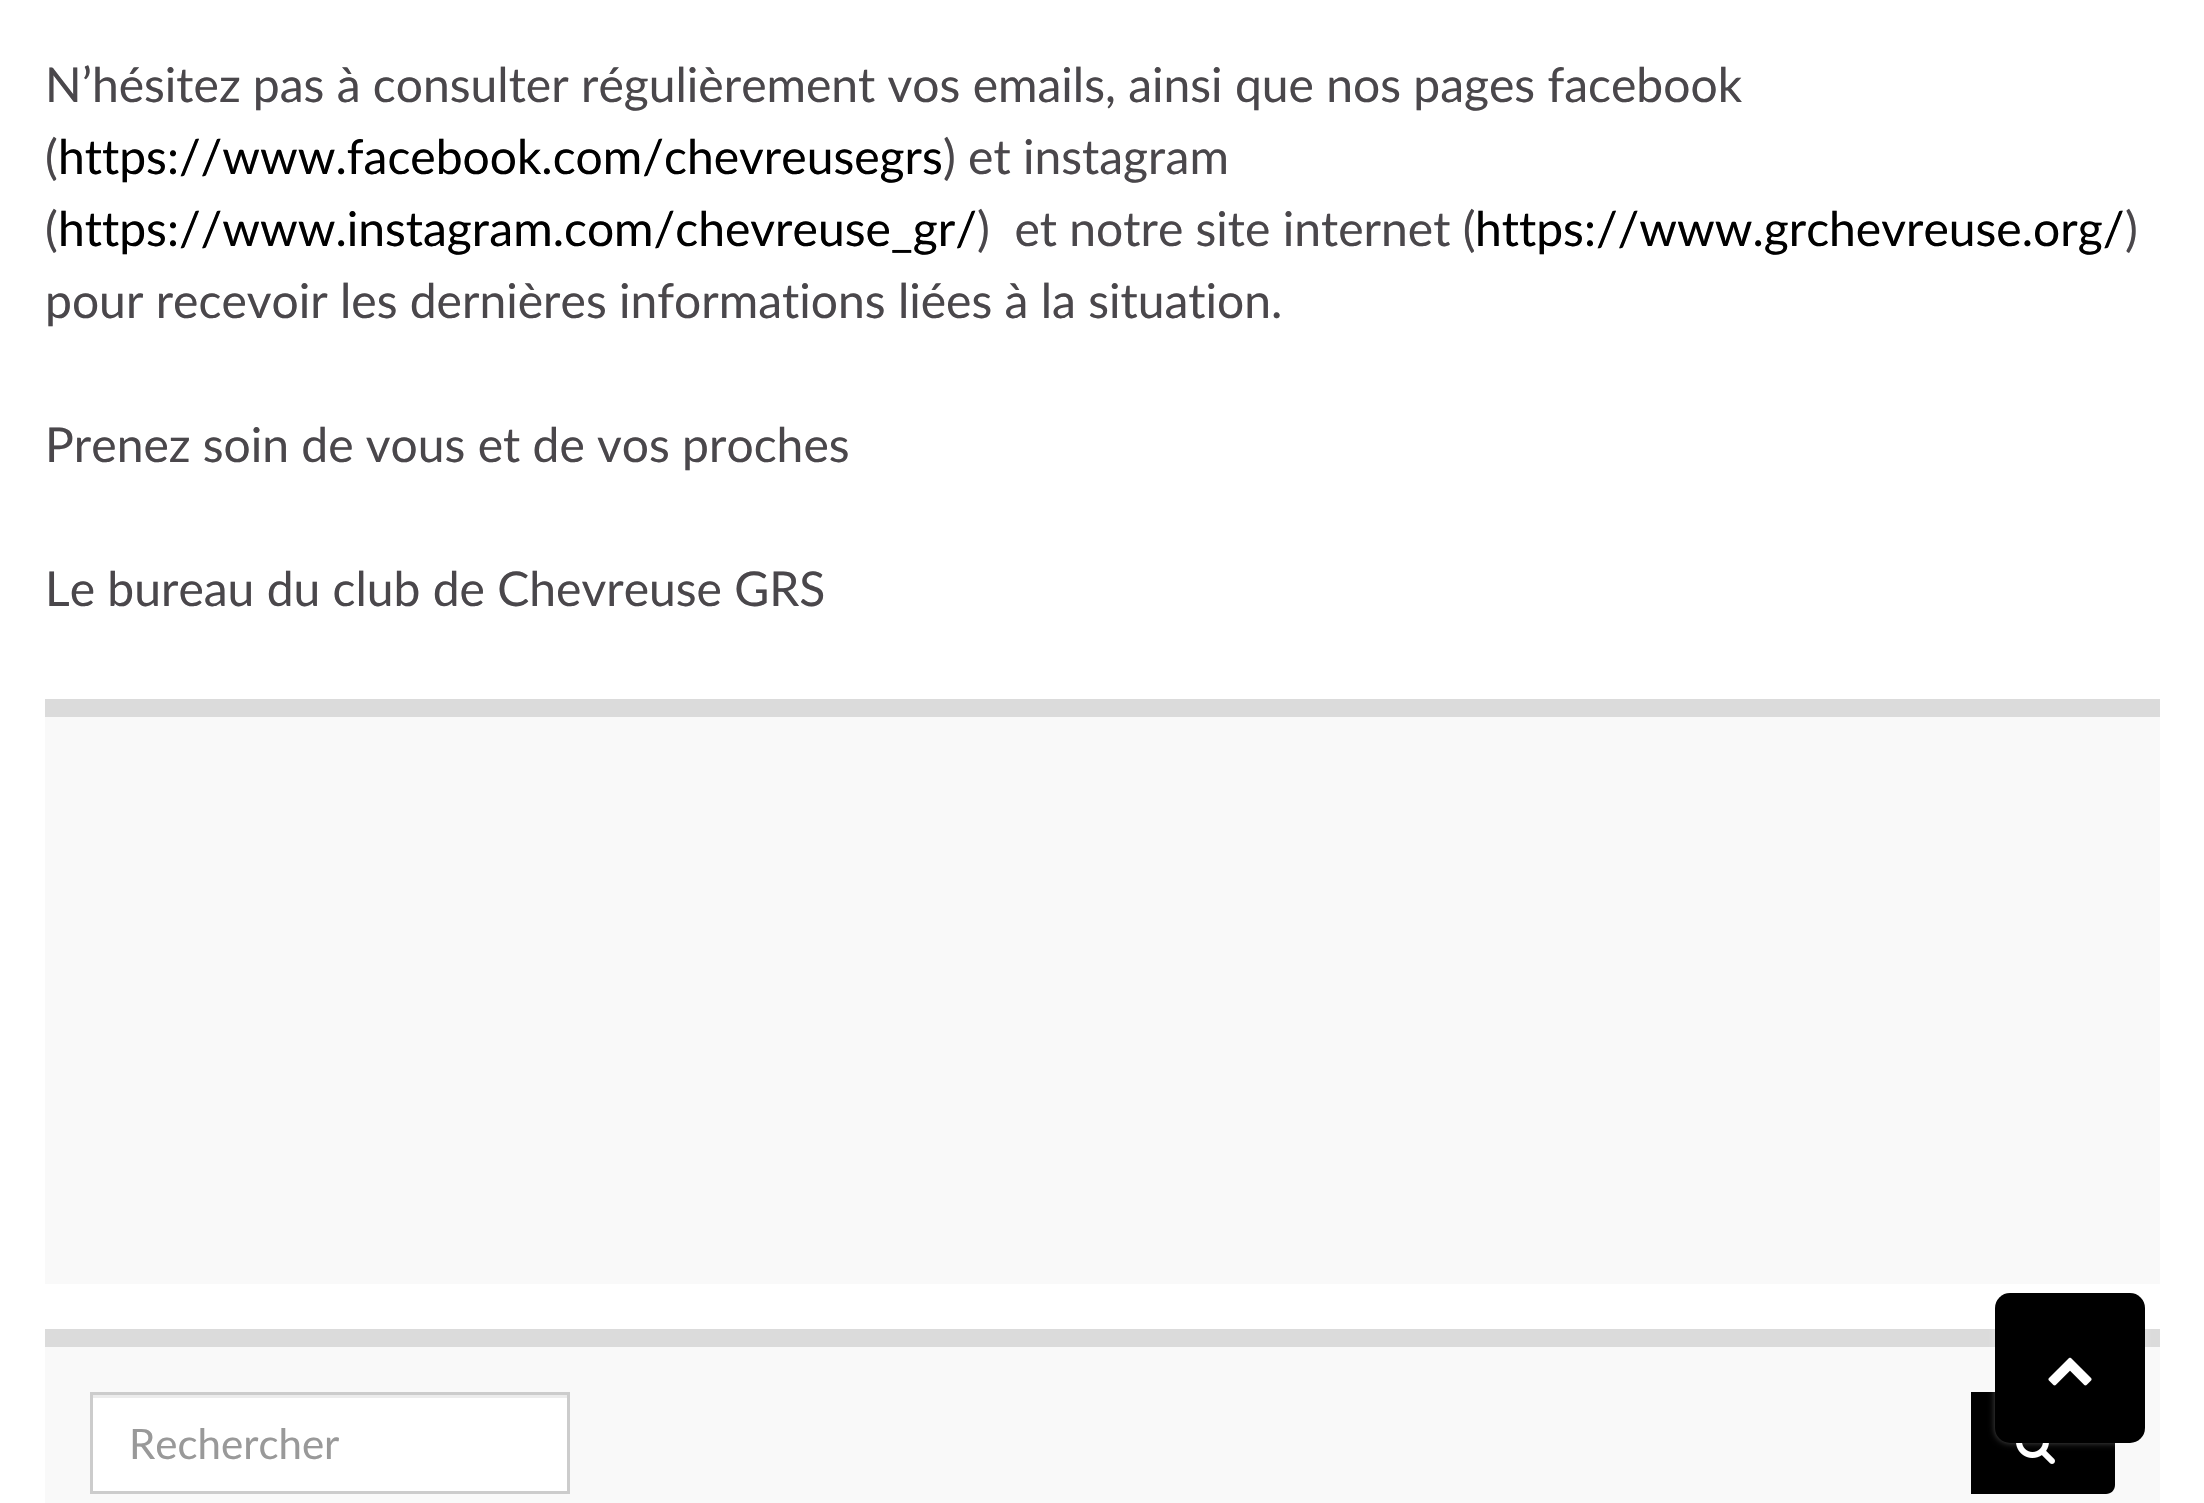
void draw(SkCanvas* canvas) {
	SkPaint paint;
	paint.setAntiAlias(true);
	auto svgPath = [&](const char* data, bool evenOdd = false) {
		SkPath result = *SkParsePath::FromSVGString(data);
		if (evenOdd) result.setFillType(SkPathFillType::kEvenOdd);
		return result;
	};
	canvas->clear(0xffffffff);
	SkFont f1(fontMgr->matchFamilyStyle("Lato", SkFontStyle::Normal()), 48);
	f1.setSubpixel(true);
	paint.setColor(0xff4a474b);
	canvas->drawString("N’hésitez pas à consulter régulièrement vos emails, ainsi que nos pages facebook", 45, 102, f1, paint);
	canvas->drawString("(", 45, 174, f1, paint);
	paint.setColor(0xff000000);
	canvas->drawString("https://www.facebook.com/chevreusegrs", 58, 174, f1, paint);
	paint.setColor(0xff4a474b);
	canvas->drawString(") et instagram", 943, 174, f1, paint);
	canvas->drawString("(", 45, 246, f1, paint);
	paint.setColor(0xff000000);
	canvas->drawString("https://www.instagram.com/chevreuse_gr/", 58, 246, f1, paint);
	paint.setColor(0xff4a474b);
	canvas->drawString(")  et notre site internet (", 977, 246, f1, paint);
	paint.setColor(0xff000000);
	canvas->drawString("https://www.grchevreuse.org/", 1475, 246, f1, paint);
	paint.setColor(0xff4a474b);
	canvas->drawString(")", 2125, 246, f1, paint);
	canvas->drawString("pour recevoir les dernières informations liées à la situation.", 45, 318, f1, paint);
	canvas->drawString("Prenez soin de vous et de vos proches", 45, 462, f1, paint);
	canvas->drawString("Le bureau du club de Chevreuse GRS", 45, 606, f1, paint);
	paint.setColor(0xfff9f9f9);
	canvas->drawRect(SkRect::MakeXYWH(45, 717, 2115, 567), paint);
	paint.setColor(0xffdbdbdb);
	canvas->drawRect(SkRect::MakeXYWH(45, 699, 2115, 18), paint);
	paint.setColor(0xfff9f9f9);
	canvas->drawRect(SkRect::MakeXYWH(45, 1347, 2115, 156), paint);
	paint.setColor(0xffdbdbdb);
	canvas->drawRect(SkRect::MakeXYWH(45, 1329, 2115, 18), paint);
	paint.setColor(0xffffffff);
	canvas->drawRect(SkRect::MakeXYWH(93, 1398, 474, 93), paint);
	paint.setColor(0xffececec);
	canvas->drawRect(SkRect::MakeXYWH(93, 1395, 474, 3), paint);
	paint.setStroke(true);
	paint.setStrokeWidth(3);
	paint.setColor(0xffcccccc);
	canvas->drawRect(SkRect::MakeXYWH(91.5, 1393.5, 477, 99), paint);
	SkFont f2(fontMgr->matchFamilyStyle("Lato", SkFontStyle::Normal()), 42);
	f2.setSubpixel(true);
	paint.setStroke(false);
	paint.setColor(0xff999999);
	canvas->drawString("Rechercher", 129, 1459, f2, paint);
	paint.setColor(0xff000000);
	canvas->drawPath(svgPath("M1971 1392H2106C2111 1392 2115 1396 2115 1401V1485C2115 1490 2111 1494 2106 1494H1971Z"), paint);
	canvas->drawImageRect(SkImages::DeferredFromEncodedData(SkData::MakeFromFileName("img1.png")), SkRect::MakeXYWH(2016, 1443, 39, 21), SkSamplingOptions());
	paint.setColor(0x4dffffff);
	paint.setMaskFilter(SkMaskFilter::MakeBlur(kNormal_SkBlurStyle, 3));
	canvas->drawRoundRect(SkRect::MakeXYWH(1995, 1293, 150, 150), 15, 15, paint);
	paint.setMaskFilter(nullptr);
	paint.setColor(0xff000000);
	canvas->drawRoundRect(SkRect::MakeXYWH(1995, 1293, 150, 150), 15, 15, paint);
	canvas->drawImageRect(SkImages::DeferredFromEncodedData(SkData::MakeFromFileName("img2.png")), SkRect::MakeXYWH(2048, 1357, 44, 29), SkSamplingOptions());
}
